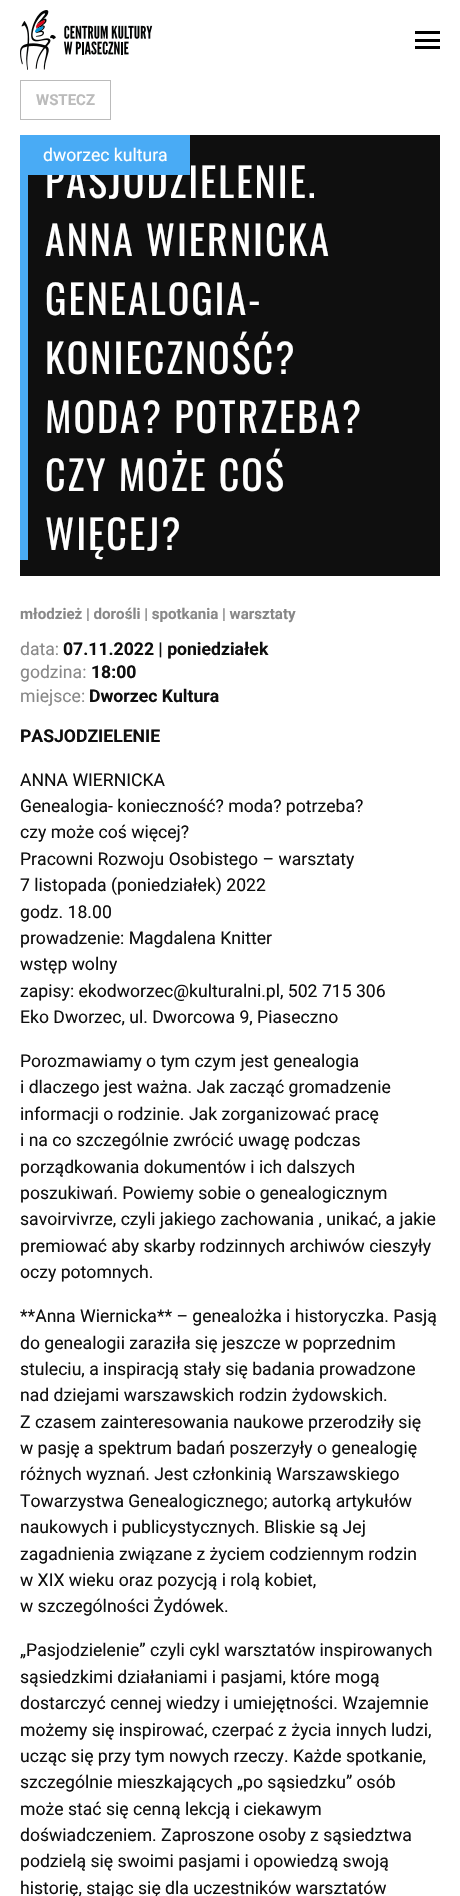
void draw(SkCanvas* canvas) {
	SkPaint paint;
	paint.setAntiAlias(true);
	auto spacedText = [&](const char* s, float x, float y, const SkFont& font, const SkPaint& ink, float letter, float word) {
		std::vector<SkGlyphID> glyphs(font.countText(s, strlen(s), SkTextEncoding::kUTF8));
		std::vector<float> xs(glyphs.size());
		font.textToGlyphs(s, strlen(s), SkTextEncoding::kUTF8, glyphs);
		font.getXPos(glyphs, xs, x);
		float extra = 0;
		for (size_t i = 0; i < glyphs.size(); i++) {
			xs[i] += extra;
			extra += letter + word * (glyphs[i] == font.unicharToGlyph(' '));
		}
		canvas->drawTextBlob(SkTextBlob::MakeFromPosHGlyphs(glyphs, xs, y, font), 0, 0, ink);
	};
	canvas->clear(0xffffffff);
	canvas->drawImageRect(SkImages::DeferredFromEncodedData(SkData::MakeFromFileName("img1.png")), SkRect::MakeXYWH(20, 10, 133, 60), SkSamplingOptions());
	paint.setColor(0xff000000);
	canvas->drawRect(SkRect::MakeXYWH(415, 31, 25, 3), paint);
	canvas->drawRect(SkRect::MakeXYWH(415, 39, 25, 3), paint);
	canvas->drawRect(SkRect::MakeXYWH(415, 46, 25, 3), paint);
	paint.setStroke(true);
	paint.setStrokeWidth(1);
	paint.setColor(0xffbbbbbb);
	canvas->drawRect(SkRect::MakeXYWH(20.5, 80.5, 90, 39), paint);
	SkFont f1(fontMgr->matchFamilyStyle("Roboto", SkFontStyle::Bold()), 15);
	f1.setSubpixel(true);
	paint.setStroke(false);
	canvas->drawString("WSTECZ", 36, 105, f1, paint);
	paint.setColor(0xff0f0f0f);
	canvas->drawRect(SkRect::MakeXYWH(20, 135, 420, 441), paint);
	SkFont f2(fontMgr->matchFamilyStyle("Oswald", SkFontStyle::Normal()), 40);
	f2.setSubpixel(true);
	paint.setColor(0xffffffff);
	spacedText("PASJODZIELENIE.", 45, 198, f2, paint, 2, 0);
	paint.setColor(0xff49abf5);
	canvas->drawRect(SkRect::MakeXYWH(20, 135, 170, 40), paint);
	SkFont f3(fontMgr->matchFamilyStyle("Roboto", SkFontStyle::Normal()), 17.6);
	f3.setSubpixel(true);
	paint.setColor(0xffffffff);
	canvas->drawString("dworzec kultura", 43, 161, f3, paint);
	paint.setColor(0xff49abf5);
	canvas->drawRect(SkRect::MakeXYWH(20, 175, 8, 385), paint);
	paint.setColor(0xffffffff);
	spacedText("ANNA WIERNICKA", 45, 256, f2, paint, 2, 0);
	spacedText("GENEALOGIA-", 45, 315, f2, paint, 2, 0);
	spacedText("KONIECZNOŚĆ?", 45, 374, f2, paint, 2, 0);
	spacedText("MODA? POTRZEBA?", 45, 433, f2, paint, 2, 0);
	spacedText("CZY MOŻE COŚ", 45, 491, f2, paint, 2, 0);
	spacedText("WIĘCEJ?", 45, 550, f2, paint, 2, 0);
	SkFont f4(fontMgr->matchFamilyStyle("Roboto", SkFontStyle::Bold()), 15.1);
	f4.setSubpixel(true);
	paint.setColor(0xff888888);
	canvas->drawString("młodzież | dorośli | spotkania | warsztaty", 20, 619, f4, paint);
	canvas->drawString("data:", 20, 655, f3, paint);
	SkFont f5(fontMgr->matchFamilyStyle("Roboto", SkFontStyle::Bold()), 17.6);
	f5.setSubpixel(true);
	paint.setColor(0xff0f0f0f);
	canvas->drawString("07.11.2022 | poniedziałek", 63, 655, f5, paint);
	paint.setColor(0xff888888);
	canvas->drawString("godzina:", 20, 678, f3, paint);
	paint.setColor(0xff0f0f0f);
	canvas->drawString("18:00", 91, 678, f5, paint);
	paint.setColor(0xff888888);
	canvas->drawString("miejsce:", 20, 702, f3, paint);
	paint.setColor(0xff0f0f0f);
	canvas->drawString("Dworzec Kultura", 89, 702, f5, paint);
	canvas->drawString("PASJODZIELENIE", 20, 742, f5, paint);
	canvas->drawString("ANNA WIERNICKA", 20, 786, f3, paint);
	canvas->drawString("Genealogia- konieczność? moda? potrzeba?", 20, 812, f3, paint);
	canvas->drawString("czy może coś więcej?", 20, 838, f3, paint);
	canvas->drawString("Pracowni Rozwoju Osobistego – warsztaty", 20, 865, f3, paint);
	canvas->drawString("7 listopada (poniedziałek) 2022", 20, 891, f3, paint);
	canvas->drawString("godz. 18.00", 20, 918, f3, paint);
	canvas->drawString("prowadzenie: Magdalena Knitter", 20, 944, f3, paint);
	canvas->drawString("wstęp wolny", 20, 970, f3, paint);
	canvas->drawString("zapisy: ekodworzec@kulturalni.pl, 502 715 306", 20, 997, f3, paint);
	canvas->drawString("Eko Dworzec, ul. Dworcowa 9, Piaseczno", 20, 1023, f3, paint);
	canvas->drawString("Porozmawiamy o tym czym jest genealogia", 20, 1067, f3, paint);
	canvas->drawString("i dlaczego jest ważna. Jak zacząć gromadzenie", 20, 1093, f3, paint);
	canvas->drawString("informacji o rodzinie. Jak zorganizować pracę", 20, 1120, f3, paint);
	canvas->drawString("i na co szczególnie zwrócić uwagę podczas", 20, 1146, f3, paint);
	canvas->drawString("porządkowania dokumentów i ich dalszych", 20, 1173, f3, paint);
	canvas->drawString("poszukiwań. Powiemy sobie o genealogicznym", 20, 1199, f3, paint);
	canvas->drawString("savoirvivrze, czyli jakiego zachowania , unikać, a jakie", 20, 1225, f3, paint);
	canvas->drawString("premiować aby skarby rodzinnych archiwów cieszyły", 20, 1252, f3, paint);
	canvas->drawString("oczy potomnych.", 20, 1278, f3, paint);
	canvas->drawString("**Anna Wiernicka** – genealożka i historyczka. Pasją", 20, 1322, f3, paint);
	canvas->drawString("do genealogii zaraziła się jeszcze w poprzednim", 20, 1349, f3, paint);
	canvas->drawString("stuleciu, a inspiracją stały się badania prowadzone", 20, 1375, f3, paint);
	canvas->drawString("nad dziejami warszawskich rodzin żydowskich.", 20, 1401, f3, paint);
	canvas->drawString("Z czasem zainteresowania naukowe przerodziły się", 20, 1428, f3, paint);
	canvas->drawString("w pasję a spektrum badań poszerzyły o genealogię", 20, 1454, f3, paint);
	canvas->drawString("różnych wyznań. Jest członkinią Warszawskiego", 20, 1480, f3, paint);
	canvas->drawString("Towarzystwa Genealogicznego; autorką artykułów", 20, 1507, f3, paint);
	canvas->drawString("naukowych i publicystycznych. Bliskie są Jej", 20, 1533, f3, paint);
	canvas->drawString("zagadnienia związane z życiem codziennym rodzin", 20, 1560, f3, paint);
	canvas->drawString("w XIX wieku oraz pozycją i rolą kobiet,", 20, 1586, f3, paint);
	canvas->drawString("w szczególności Żydówek.", 20, 1612, f3, paint);
	canvas->drawString("„Pasjodzielenie” czyli cykl warsztatów inspirowanych", 20, 1656, f3, paint);
	canvas->drawString("sąsiedzkimi działaniami i pasjami, które mogą", 20, 1683, f3, paint);
	canvas->drawString("dostarczyć cennej wiedzy i umiejętności. Wzajemnie", 20, 1709, f3, paint);
	canvas->drawString("możemy się inspirować, czerpać z życia innych ludzi,", 20, 1736, f3, paint);
	canvas->drawString("ucząc się przy tym nowych rzeczy. Każde spotkanie,", 20, 1762, f3, paint);
	canvas->drawString("szczególnie mieszkających „po sąsiedzku” osób", 20, 1788, f3, paint);
	canvas->drawString("może stać się cenną lekcją i ciekawym", 20, 1815, f3, paint);
	canvas->drawString("doświadczeniem. Zaproszone osoby z sąsiedztwa", 20, 1841, f3, paint);
	canvas->drawString("podzielą się swoimi pasjami i opowiedzą swoją", 20, 1867, f3, paint);
	canvas->drawString("historię, stając się dla uczestników warsztatów", 20, 1894, f3, paint);
}
